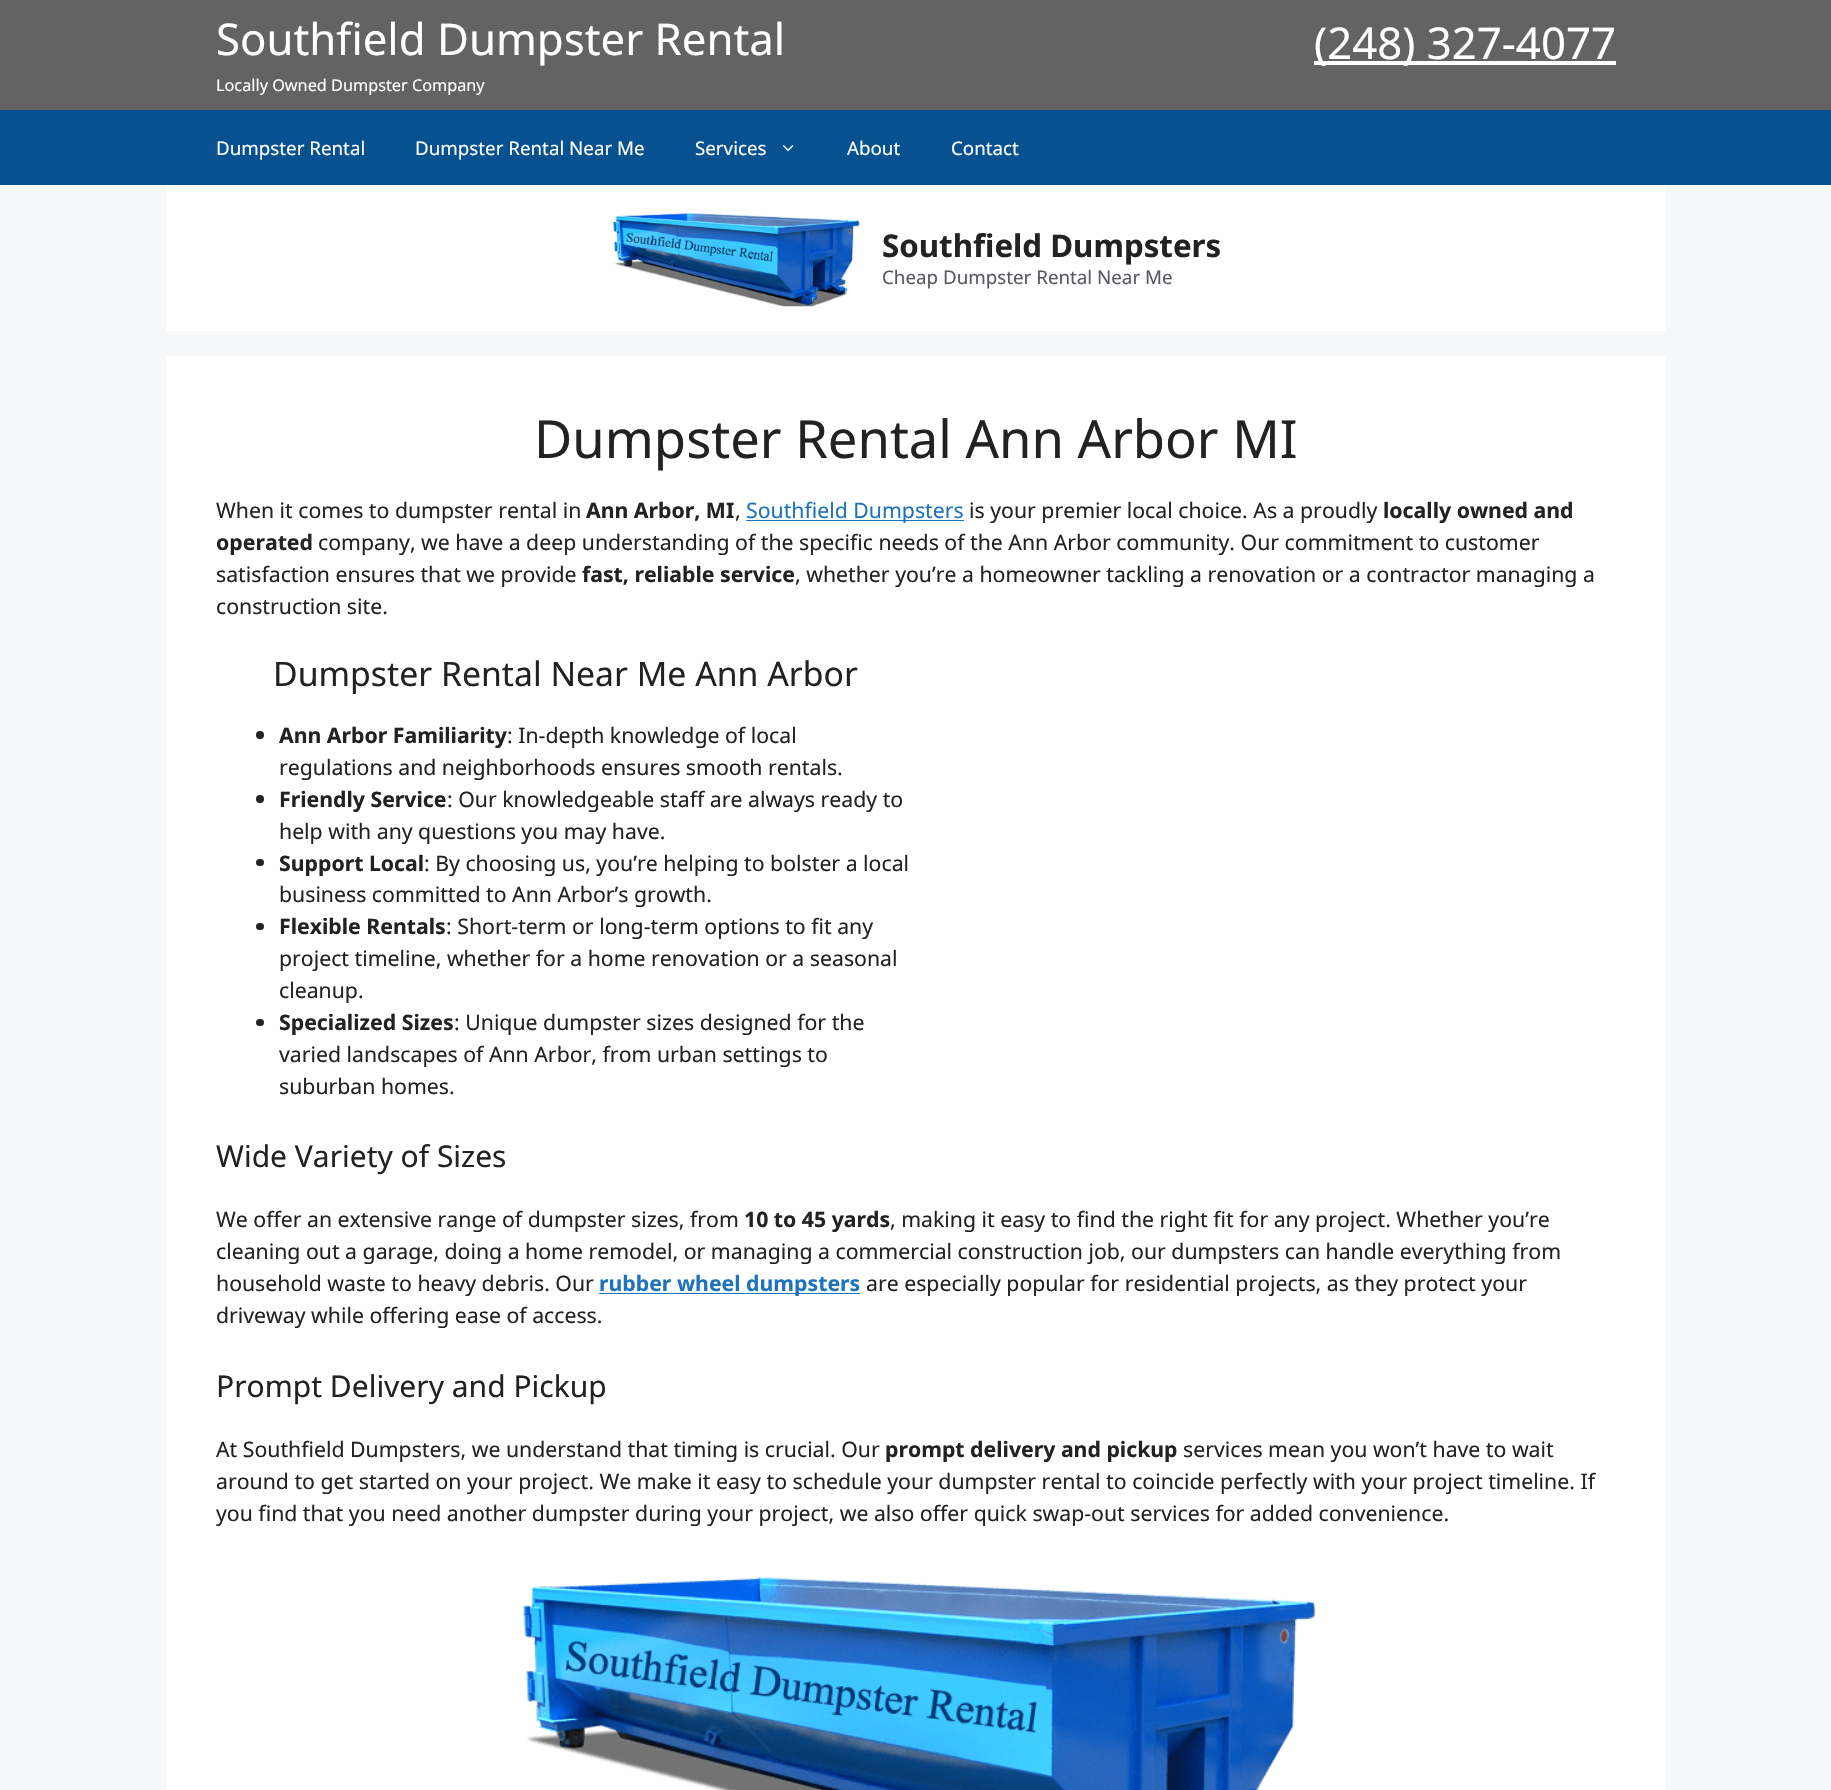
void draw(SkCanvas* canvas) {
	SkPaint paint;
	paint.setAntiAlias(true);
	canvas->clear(0xfff7f8f9);
	paint.setColor(0xff636363);
	canvas->drawRect(SkRect::MakeXYWH(0, 0, 1831, 110), paint);
	SkFont f1(fontMgr->matchFamilyStyle("Noto Sans", SkFontStyle::Normal()), 43.75);
	f1.setSubpixel(true);
	paint.setColor(0xffffffff);
	canvas->drawString("Southfield Dumpster Rental", 216, 55, f1, paint);
	SkFont f2(fontMgr->matchFamilyStyle("Noto Sans", SkFontStyle::Normal()), 16.25);
	f2.setSubpixel(true);
	canvas->drawString("Locally Owned Dumpster Company", 216, 91, f2, paint);
	canvas->drawRect(SkRect::MakeXYWH(1314, 61, 302, 4), paint);
	canvas->drawString("(248) 327-4077", 1314, 59, f1, paint);
	paint.setColor(0xff075191);
	canvas->drawRect(SkRect::MakeXYWH(0, 110, 1831, 75), paint);
	SkFont f3(fontMgr->matchFamilyStyle("Noto Sans", SkFontStyle::Normal()), 18.75);
	f3.setSubpixel(true);
	paint.setColor(0xffffffff);
	canvas->drawString("Dumpster Rental", 216, 155, f3, paint);
	canvas->drawString("Dumpster Rental Near Me", 415, 155, f3, paint);
	canvas->drawString("Services", 695, 155, f3, paint);
	canvas->drawImageRect(SkImages::DeferredFromEncodedData(SkData::MakeFromFileName("img1.png")), SkRect::MakeXYWH(783, 145, 11, 7), SkSamplingOptions());
	canvas->drawString("About", 847, 155, f3, paint);
	canvas->drawString("Contact", 951, 155, f3, paint);
	canvas->drawRect(SkRect::MakeXYWH(166, 185, 1500, 146), paint);
	canvas->drawImageRect(SkImages::DeferredFromEncodedData(SkData::MakeFromFileName("img2.png")), SkRect::MakeXYWH(613, 213, 247, 94), SkSamplingOptions());
	SkFont f4(fontMgr->matchFamilyStyle("Noto Sans", SkFontStyle::Bold()), 31.25);
	f4.setSubpixel(true);
	paint.setColor(0xff222222);
	canvas->drawString("Southfield Dumpsters", 882, 257, f4, paint);
	paint.setColor(0xff575760);
	canvas->drawString("Cheap Dumpster Rental Near Me", 882, 284, f3, paint);
	paint.setColor(0xffffffff);
	canvas->drawRect(SkRect::MakeXYWH(166, 356, 1500, 1434), paint);
	SkFont f5(fontMgr->matchFamilyStyle("Noto Sans", SkFontStyle::Normal()), 52.5);
	f5.setSubpixel(true);
	paint.setColor(0xff222222);
	canvas->drawString("Dumpster Rental Ann Arbor MI", 534, 458, f5, paint);
	SkFont f6(fontMgr->matchFamilyStyle("Noto Sans", SkFontStyle::Normal()), 21.25);
	f6.setSubpixel(true);
	canvas->drawString("When it comes to dumpster rental in", 216, 518, f6, paint);
	SkFont f7(fontMgr->matchFamilyStyle("Noto Sans", SkFontStyle::Bold()), 21.25);
	f7.setSubpixel(true);
	canvas->drawString("Ann Arbor, MI", 586, 518, f7, paint);
	canvas->drawString(",", 735, 518, f6, paint);
	paint.setColor(0xff1e73be);
	canvas->drawRect(SkRect::MakeXYWH(746, 520, 218, 1), paint);
	canvas->drawString("Southfield Dumpsters", 746, 518, f6, paint);
	paint.setColor(0xff222222);
	canvas->drawString("is your premier local choice. As a proudly", 969, 518, f6, paint);
	canvas->drawString("locally owned and", 1383, 518, f7, paint);
	canvas->drawString("operated", 216, 550, f7, paint);
	canvas->drawString("company, we have a deep understanding of the specific needs of the Ann Arbor community. Our commitment to customer", 318, 550, f6, paint);
	canvas->drawString("satisfaction ensures that we provide", 216, 582, f6, paint);
	canvas->drawString("fast, reliable service", 582, 582, f7, paint);
	canvas->drawString(", whether you’re a homeowner tackling a renovation or a contractor managing a", 795, 582, f6, paint);
	canvas->drawString("construction site.", 216, 614, f6, paint);
	SkFont f8(fontMgr->matchFamilyStyle("Noto Sans", SkFontStyle::Normal()), 33.75);
	f8.setSubpixel(true);
	canvas->drawString("Dumpster Rental Near Me Ann Arbor", 273, 686, f8, paint);
	canvas->drawCircle(260, 735, 4, paint);
	canvas->drawString("Ann Arbor Familiarity", 279, 743, f7, paint);
	canvas->drawString(": In-depth knowledge of local", 507, 743, f6, paint);
	canvas->drawString("regulations and neighborhoods ensures smooth rentals.", 279, 775, f6, paint);
	canvas->drawCircle(260, 799, 4, paint);
	canvas->drawString("Friendly Service", 279, 807, f7, paint);
	canvas->drawString(": Our knowledgeable staff are always ready to", 447, 807, f6, paint);
	canvas->drawString("help with any questions you may have.", 279, 839, f6, paint);
	canvas->drawRoundRect(SkRect::MakeXYWH(256, 859, 8, 7), 3.5, 3.5, paint);
	canvas->drawString("Support Local", 279, 871, f7, paint);
	canvas->drawString(": By choosing us, you’re helping to bolster a local", 424, 871, f6, paint);
	canvas->drawString("business committed to Ann Arbor’s growth.", 279, 902, f6, paint);
	canvas->drawRoundRect(SkRect::MakeXYWH(256, 923, 8, 7), 3.5, 3.5, paint);
	canvas->drawString("Flexible Rentals", 279, 934, f7, paint);
	canvas->drawString(": Short-term or long-term options to fit any", 446, 934, f6, paint);
	canvas->drawString("project timeline, whether for a home renovation or a seasonal", 279, 966, f6, paint);
	canvas->drawString("cleanup.", 279, 998, f6, paint);
	canvas->drawRoundRect(SkRect::MakeXYWH(256, 1019, 8, 7), 3.5, 3.5, paint);
	canvas->drawString("Specialized Sizes", 279, 1030, f7, paint);
	canvas->drawString(": Unique dumpster sizes designed for the", 454, 1030, f6, paint);
	canvas->drawString("varied landscapes of Ann Arbor, from urban settings to", 279, 1062, f6, paint);
	canvas->drawString("suburban homes.", 279, 1094, f6, paint);
	SkFont f9(fontMgr->matchFamilyStyle("Noto Sans", SkFontStyle::Normal()), 30);
	f9.setSubpixel(true);
	canvas->drawString("Wide Variety of Sizes", 216, 1167, f9, paint);
	canvas->drawString("We offer an extensive range of dumpster sizes, from", 216, 1227, f6, paint);
	canvas->drawString("10 to 45 yards", 744, 1227, f7, paint);
	canvas->drawString(", making it easy to find the right fit for any project. Whether you’re", 890, 1227, f6, paint);
	canvas->drawString("cleaning out a garage, doing a home remodel, or managing a commercial construction job, our dumpsters can handle everything from", 216, 1259, f6, paint);
	canvas->drawString("household waste to heavy debris. Our", 216, 1291, f6, paint);
	paint.setColor(0xff1e73be);
	canvas->drawRect(SkRect::MakeXYWH(599, 1293, 261, 1), paint);
	canvas->drawString("rubber wheel dumpsters", 599, 1291, f7, paint);
	paint.setColor(0xff222222);
	canvas->drawString("are especially popular for residential projects, as they protect your", 866, 1291, f6, paint);
	canvas->drawString("driveway while offering ease of access.", 216, 1323, f6, paint);
	canvas->drawString("Prompt Delivery and Pickup", 216, 1397, f9, paint);
	canvas->drawString("At Southfield Dumpsters, we understand that timing is crucial. Our", 216, 1457, f6, paint);
	canvas->drawString("prompt delivery and pickup", 885, 1457, f7, paint);
	canvas->drawString("services mean you won’t have to wait", 1183, 1457, f6, paint);
	canvas->drawString("around to get started on your project. We make it easy to schedule your dumpster rental to coincide perfectly with your project timeline. If", 216, 1489, f6, paint);
	canvas->drawString("you find that you need another dumpster during your project, we also offer quick swap-out services for added convenience.", 216, 1521, f6, paint);
	canvas->drawImageRect(SkImages::DeferredFromEncodedData(SkData::MakeFromFileName("img3.png")), SkRect::MakeXYWH(523, 1577, 793, 213), SkSamplingOptions());
}
